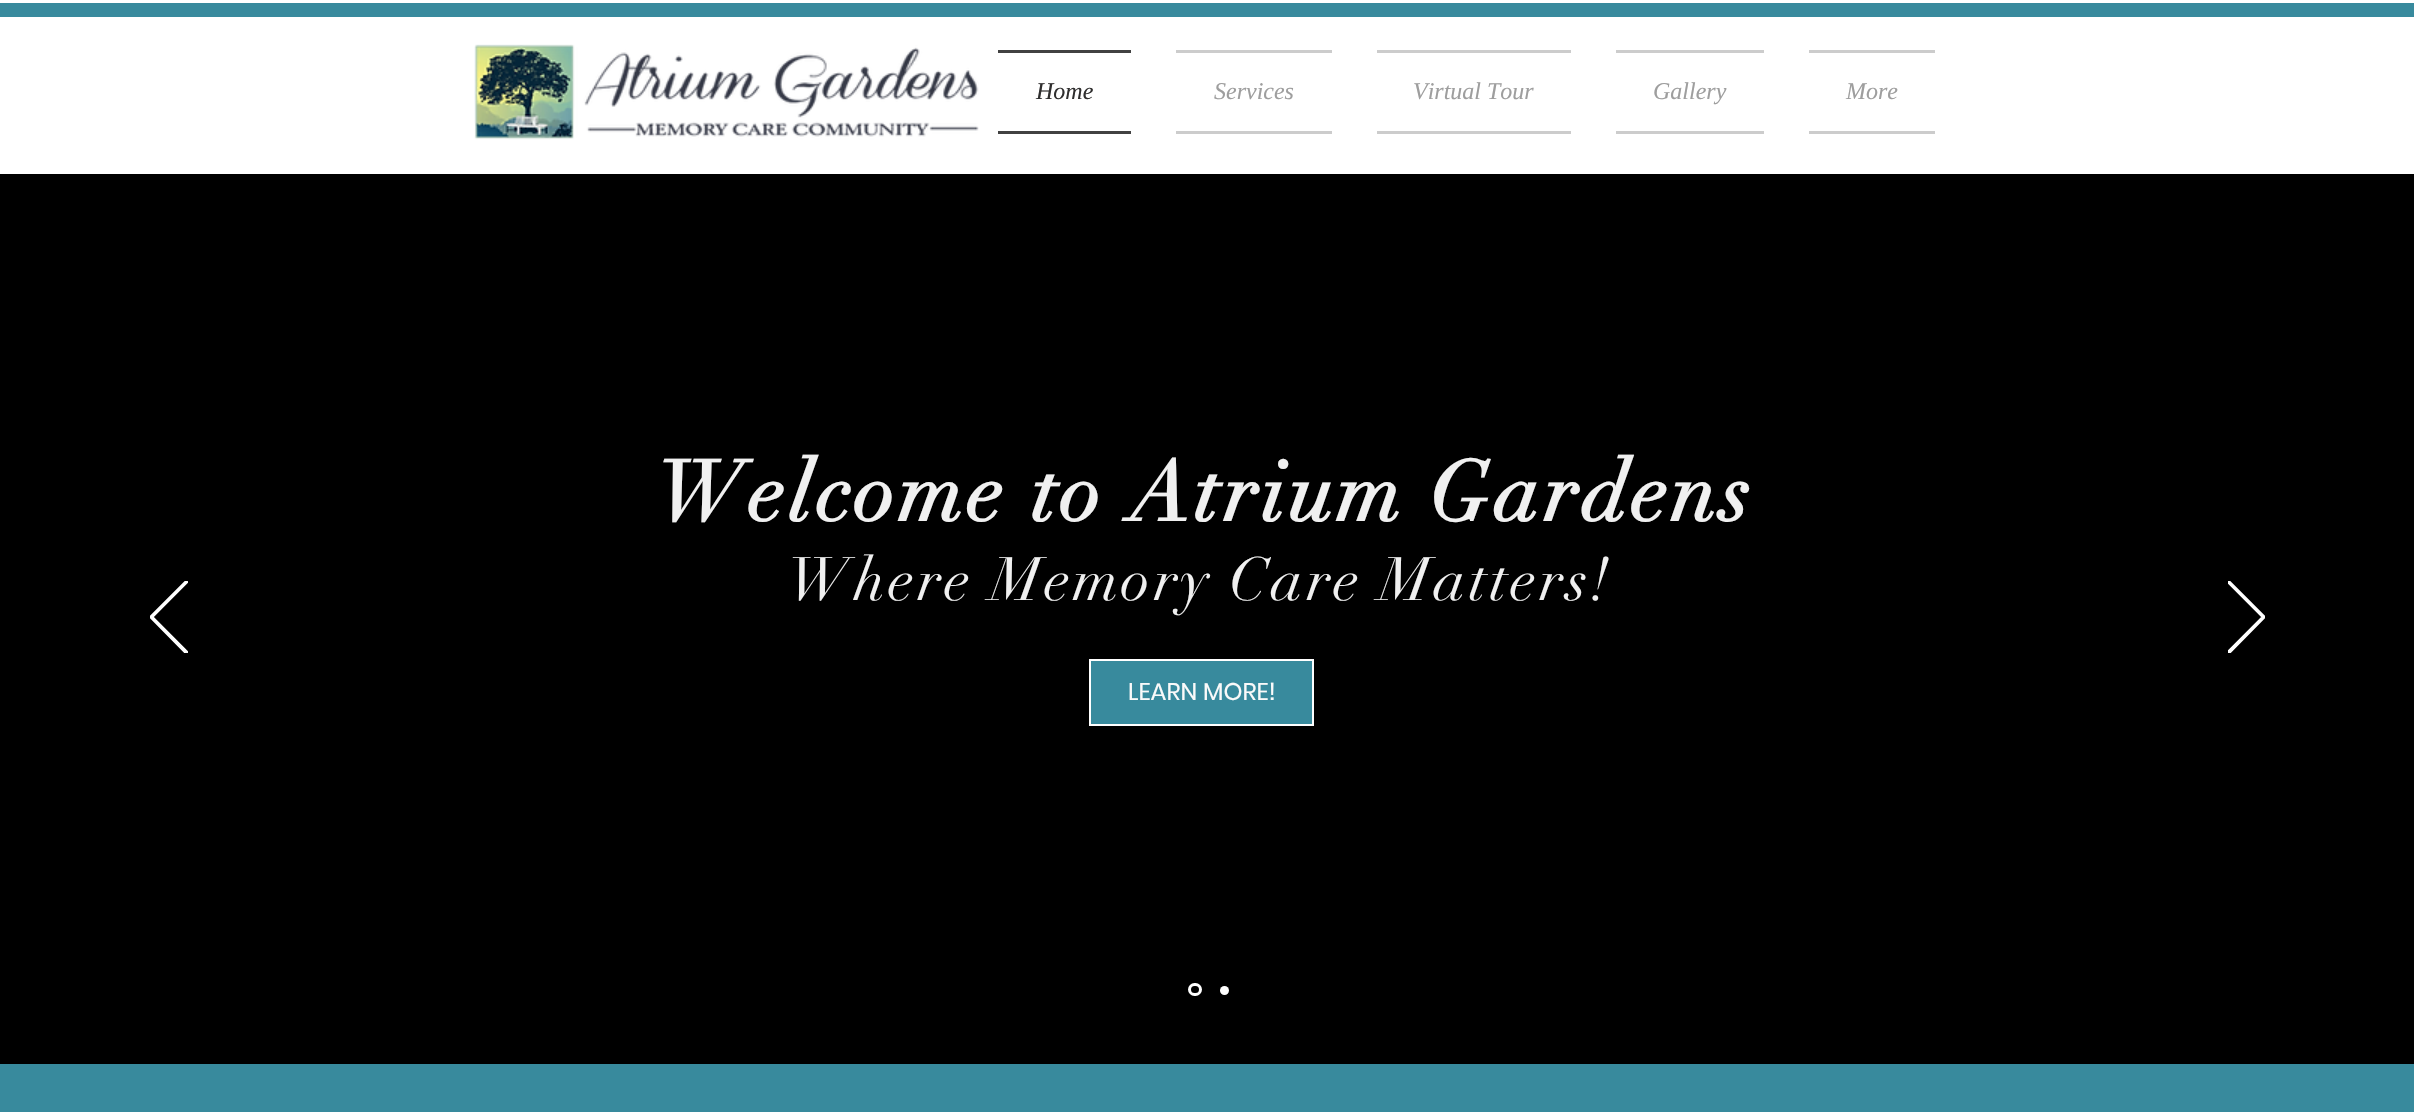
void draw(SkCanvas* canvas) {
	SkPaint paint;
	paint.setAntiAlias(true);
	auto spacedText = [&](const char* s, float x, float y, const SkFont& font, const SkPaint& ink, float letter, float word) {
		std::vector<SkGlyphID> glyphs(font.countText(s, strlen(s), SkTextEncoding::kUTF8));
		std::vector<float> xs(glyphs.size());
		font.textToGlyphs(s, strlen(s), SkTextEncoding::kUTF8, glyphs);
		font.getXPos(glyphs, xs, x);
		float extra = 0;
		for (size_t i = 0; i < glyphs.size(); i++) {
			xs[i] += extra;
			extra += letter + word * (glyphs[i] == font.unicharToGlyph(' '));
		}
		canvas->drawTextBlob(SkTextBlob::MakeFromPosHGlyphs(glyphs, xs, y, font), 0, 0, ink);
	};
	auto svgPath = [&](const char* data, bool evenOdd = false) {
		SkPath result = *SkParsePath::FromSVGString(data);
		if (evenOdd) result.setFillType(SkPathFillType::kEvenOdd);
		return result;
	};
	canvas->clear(0xffffffff);
	paint.setColor(0xff388a9d);
	canvas->drawRect(SkRect::MakeXYWH(0, 3, 2414, 14), paint);
	canvas->drawImageRect(SkImages::DeferredFromEncodedData(SkData::MakeFromFileName("img1.png")), SkRect::MakeXYWH(474, 44, 505, 96), SkSamplingOptions());
	paint.setColor(0xff414141);
	canvas->drawRect(SkRect::MakeXYWH(998, 50, 133, 3), paint);
	canvas->drawRect(SkRect::MakeXYWH(998, 131, 133, 3), paint);
	SkFont f1(fontMgr->matchFamilyStyle("Liberation Serif", SkFontStyle::Italic()), 24);
	f1.setSubpixel(true);
	paint.setColor(0xff2f2e2e);
	canvas->drawString("Home", 1036, 99, f1, paint);
	paint.setColor(0xffcccccc);
	canvas->drawRect(SkRect::MakeXYWH(1176, 50, 156, 3), paint);
	canvas->drawRect(SkRect::MakeXYWH(1176, 131, 156, 3), paint);
	paint.setColor(0xff9e9e9e);
	canvas->drawString("Services", 1214, 99, f1, paint);
	paint.setColor(0xffcccccc);
	canvas->drawRect(SkRect::MakeXYWH(1377, 50, 194, 3), paint);
	canvas->drawRect(SkRect::MakeXYWH(1377, 131, 194, 3), paint);
	paint.setColor(0xff9e9e9e);
	canvas->drawString("Virtual Tour", 1413, 99, f1, paint);
	paint.setColor(0xffcccccc);
	canvas->drawRect(SkRect::MakeXYWH(1616, 50, 148, 3), paint);
	canvas->drawRect(SkRect::MakeXYWH(1616, 131, 148, 3), paint);
	paint.setColor(0xff9e9e9e);
	canvas->drawString("Gallery", 1653, 99, f1, paint);
	paint.setColor(0xffcccccc);
	canvas->drawRect(SkRect::MakeXYWH(1809, 50, 126, 3), paint);
	canvas->drawRect(SkRect::MakeXYWH(1809, 131, 126, 3), paint);
	paint.setColor(0xff9e9e9e);
	canvas->drawString("More", 1846, 99, f1, paint);
	paint.setColor(0xff000000);
	canvas->drawRect(SkRect::MakeXYWH(0, 174, 2414, 890), paint);
	paint.setColor(0xffffffff);
	canvas->drawPath(svgPath("M186 653L150 617L186 581L187 582L152 617L187 652Z"), paint);
	canvas->save();
	canvas->clipRect(SkRect::MakeXYWH(150, 581, 38, 72));
	paint.setStroke(true);
	paint.setStrokeWidth(1.8);
	canvas->drawPath(svgPath("M186 653.5L150 617L186 581L187.5 582L152.5 617L187.5 652Z"), paint);
	canvas->restore();
	SkFont f2(fontMgr->matchFamilyStyle("didot", SkFontStyle::Bold()), 84);
	f2.setSubpixel(true);
	paint.setStroke(false);
	paint.setColor(0xfff0f0f0);
	spacedText("Welcome to Atrium Gardens", 657, 521, f2, paint, 4.2, 0);
	SkFont f3(fontMgr->matchFamilyStyle("didot", SkFontStyle::Normal()), 60);
	f3.setSubpixel(true);
	spacedText("Where Memory Care Matters!", 788, 600, f3, paint, 3, 0);
	paint.setColor(0xff388a9d);
	canvas->drawRect(SkRect::MakeXYWH(1090, 660, 223, 65), paint);
	paint.setStroke(true);
	paint.setStrokeWidth(2);
	paint.setColor(0xffffffff);
	canvas->drawRect(SkRect::MakeXYWH(1090, 660, 223, 65), paint);
	SkFont f4(fontMgr->matchFamilyStyle("Poppins", SkFontStyle::Normal()), 24);
	f4.setSubpixel(true);
	paint.setStroke(false);
	paint.setColor(0xfffafafa);
	canvas->drawString("LEARN MORE!", 1128, 700, f4, paint);
	paint.setColor(0xffffffff);
	canvas->drawPath(svgPath("M2229 653L2265 617L2229 581L2228 582L2263 617L2228 652Z"), paint);
	canvas->save();
	canvas->clipRect(SkRect::MakeXYWH(2228, 581, 37, 72));
	paint.setStroke(true);
	paint.setStrokeWidth(1.8);
	canvas->drawPath(svgPath("M2229 653.5L2265 617L2229 581L2227.5 582L2262.5 617L2227.5 652Z"), paint);
	canvas->restore();
	paint.setStrokeWidth(3);
	canvas->drawRoundRect(SkRect::MakeXYWH(1189.5, 984.5, 11, 10), 5, 5, paint);
	paint.setStroke(false);
	canvas->drawCircle(1224.5, 990.5, 4.5, paint);
	paint.setColor(0xff388a9d);
	canvas->drawRect(SkRect::MakeXYWH(0, 1064, 2414, 48), paint);
}
